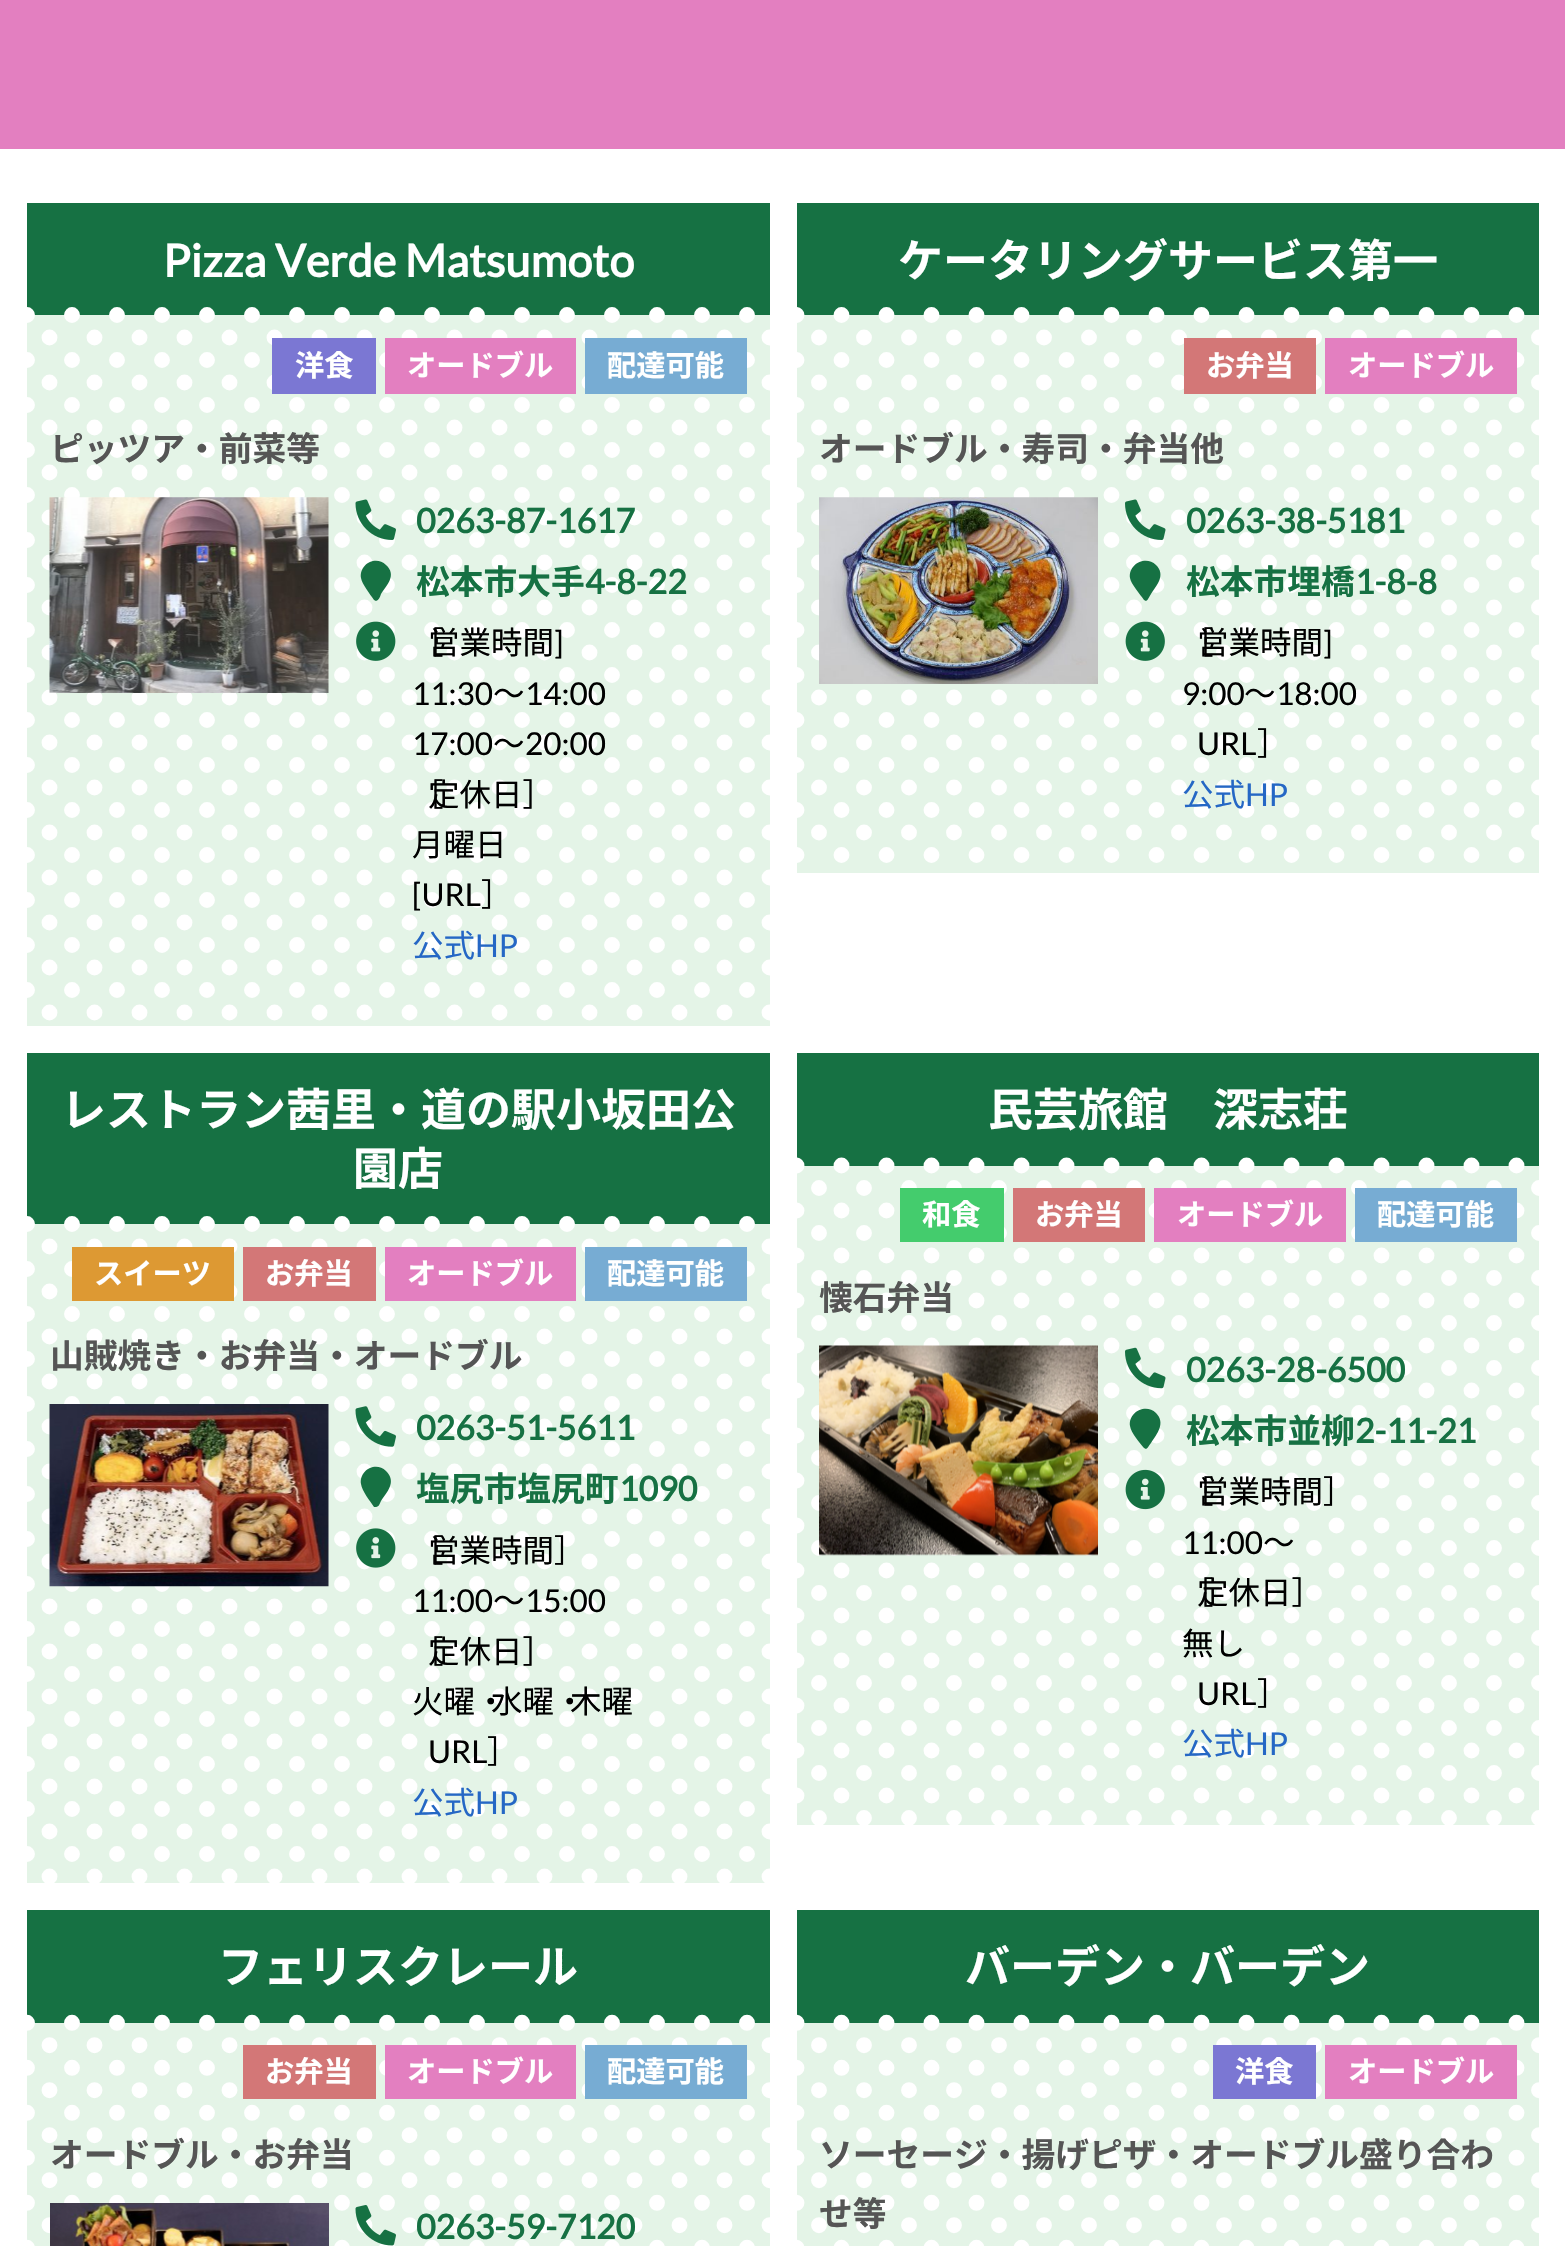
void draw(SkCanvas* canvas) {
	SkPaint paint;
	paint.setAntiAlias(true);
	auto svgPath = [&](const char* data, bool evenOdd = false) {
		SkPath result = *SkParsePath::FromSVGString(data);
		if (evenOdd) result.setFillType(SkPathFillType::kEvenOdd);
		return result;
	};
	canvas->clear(0xffffffff);
	paint.setColor(0xffe37fc0);
	canvas->drawRect(SkRect::MakeXYWH(0, 0, 1565, 149), paint);
	paint.setColor(0xffe4f4e7);
	canvas->drawRect(SkRect::MakeXYWH(27, 315, 743, 711), paint);
	paint.setColor(0xff167143);
	canvas->drawRect(SkRect::MakeXYWH(27, 203, 743, 112), paint);
	SkFont f1(fontMgr->matchFamilyStyle("Lato", SkFontStyle::Bold()), 45);
	f1.setSubpixel(true);
	paint.setColor(0xffffffff);
	canvas->drawString("Pizza Verde Matsumoto", 163, 277, f1, paint);
	canvas->save();
	canvas->clipRect(SkRect::MakeXYWH(27, 203, 743, 823));
	paint.setStroke(true);
	paint.setStrokeWidth(15.9);
	paint.setStrokeCap(SkPaint::kRound_Cap);
	paint.setPathEffect(SkDashPathEffect::Make({{0, 45}}, 0));
	canvas->drawPath(svgPath("M27 315H747.4"), paint);
	paint.setPathEffect(nullptr);
	paint.setPathEffect(SkDashPathEffect::Make({{0, 45}}, 0));
	canvas->drawPath(svgPath("M27 360H747.4"), paint);
	paint.setPathEffect(nullptr);
	paint.setPathEffect(SkDashPathEffect::Make({{0, 45}}, 0));
	canvas->drawPath(svgPath("M27 405H747.4"), paint);
	paint.setPathEffect(nullptr);
	paint.setPathEffect(SkDashPathEffect::Make({{0, 45}}, 0));
	canvas->drawPath(svgPath("M27 450H747.4"), paint);
	paint.setPathEffect(nullptr);
	paint.setPathEffect(SkDashPathEffect::Make({{0, 45}}, 0));
	canvas->drawPath(svgPath("M27 495H747.4"), paint);
	paint.setPathEffect(nullptr);
	paint.setPathEffect(SkDashPathEffect::Make({{0, 45}}, 0));
	canvas->drawPath(svgPath("M27 540H747.4"), paint);
	paint.setPathEffect(nullptr);
	paint.setPathEffect(SkDashPathEffect::Make({{0, 45}}, 0));
	canvas->drawPath(svgPath("M27 585H747.4"), paint);
	paint.setPathEffect(nullptr);
	paint.setPathEffect(SkDashPathEffect::Make({{0, 45}}, 0));
	canvas->drawPath(svgPath("M27 630H747.4"), paint);
	paint.setPathEffect(nullptr);
	paint.setPathEffect(SkDashPathEffect::Make({{0, 45}}, 0));
	canvas->drawPath(svgPath("M27 675H747.4"), paint);
	paint.setPathEffect(nullptr);
	paint.setPathEffect(SkDashPathEffect::Make({{0, 45}}, 0));
	canvas->drawPath(svgPath("M27 720H747.4"), paint);
	paint.setPathEffect(nullptr);
	paint.setPathEffect(SkDashPathEffect::Make({{0, 45}}, 0));
	canvas->drawPath(svgPath("M27 765H747.4"), paint);
	paint.setPathEffect(nullptr);
	paint.setPathEffect(SkDashPathEffect::Make({{0, 45}}, 0));
	canvas->drawPath(svgPath("M27 810H747.4"), paint);
	paint.setPathEffect(nullptr);
	paint.setPathEffect(SkDashPathEffect::Make({{0, 45}}, 0));
	canvas->drawPath(svgPath("M27 855H747.4"), paint);
	paint.setPathEffect(nullptr);
	paint.setPathEffect(SkDashPathEffect::Make({{0, 45}}, 0));
	canvas->drawPath(svgPath("M27 900H747.4"), paint);
	paint.setPathEffect(nullptr);
	paint.setPathEffect(SkDashPathEffect::Make({{0, 45}}, 0));
	canvas->drawPath(svgPath("M27 945H747.4"), paint);
	paint.setPathEffect(nullptr);
	paint.setPathEffect(SkDashPathEffect::Make({{0, 45}}, 0));
	canvas->drawPath(svgPath("M27 990H747.4"), paint);
	paint.setPathEffect(nullptr);
	paint.setPathEffect(SkDashPathEffect::Make({{0, 45}}, 0));
	canvas->drawPath(svgPath("M49.5 337.5H769.9"), paint);
	paint.setPathEffect(nullptr);
	paint.setPathEffect(SkDashPathEffect::Make({{0, 45}}, 0));
	canvas->drawPath(svgPath("M49.5 382.5H769.9"), paint);
	paint.setPathEffect(nullptr);
	paint.setPathEffect(SkDashPathEffect::Make({{0, 45}}, 0));
	canvas->drawPath(svgPath("M49.5 427.5H769.9"), paint);
	paint.setPathEffect(nullptr);
	paint.setPathEffect(SkDashPathEffect::Make({{0, 45}}, 0));
	canvas->drawPath(svgPath("M49.5 472.5H769.9"), paint);
	paint.setPathEffect(nullptr);
	paint.setPathEffect(SkDashPathEffect::Make({{0, 45}}, 0));
	canvas->drawPath(svgPath("M49.5 517.5H769.9"), paint);
	paint.setPathEffect(nullptr);
	paint.setPathEffect(SkDashPathEffect::Make({{0, 45}}, 0));
	canvas->drawPath(svgPath("M49.5 562.5H769.9"), paint);
	paint.setPathEffect(nullptr);
	paint.setPathEffect(SkDashPathEffect::Make({{0, 45}}, 0));
	canvas->drawPath(svgPath("M49.5 607.5H769.9"), paint);
	paint.setPathEffect(nullptr);
	paint.setPathEffect(SkDashPathEffect::Make({{0, 45}}, 0));
	canvas->drawPath(svgPath("M49.5 652.5H769.9"), paint);
	paint.setPathEffect(nullptr);
	paint.setPathEffect(SkDashPathEffect::Make({{0, 45}}, 0));
	canvas->drawPath(svgPath("M49.5 697.5H769.9"), paint);
	paint.setPathEffect(nullptr);
	paint.setPathEffect(SkDashPathEffect::Make({{0, 45}}, 0));
	canvas->drawPath(svgPath("M49.5 742.5H769.9"), paint);
	paint.setPathEffect(nullptr);
	paint.setPathEffect(SkDashPathEffect::Make({{0, 45}}, 0));
	canvas->drawPath(svgPath("M49.5 787.5H769.9"), paint);
	paint.setPathEffect(nullptr);
	paint.setPathEffect(SkDashPathEffect::Make({{0, 45}}, 0));
	canvas->drawPath(svgPath("M49.5 832.5H769.9"), paint);
	paint.setPathEffect(nullptr);
	paint.setPathEffect(SkDashPathEffect::Make({{0, 45}}, 0));
	canvas->drawPath(svgPath("M49.5 877.5H769.9"), paint);
	paint.setPathEffect(nullptr);
	paint.setPathEffect(SkDashPathEffect::Make({{0, 45}}, 0));
	canvas->drawPath(svgPath("M49.5 922.5H769.9"), paint);
	paint.setPathEffect(nullptr);
	paint.setPathEffect(SkDashPathEffect::Make({{0, 45}}, 0));
	canvas->drawPath(svgPath("M49.5 967.5H769.9"), paint);
	paint.setPathEffect(nullptr);
	paint.setPathEffect(SkDashPathEffect::Make({{0, 45}}, 0));
	canvas->drawPath(svgPath("M49.5 1012.5H769.9"), paint);
	paint.setPathEffect(nullptr);
	canvas->restore();
	paint.setStroke(false);
	paint.setColor(0xff7b77d3);
	canvas->drawRect(SkRect::MakeXYWH(272, 338, 104, 56), paint);
	SkFont f2(fontMgr->matchFamilyStyle("Noto Sans JP", SkFontStyle::Bold()), 29.25);
	f2.setSubpixel(true);
	paint.setColor(0xffffffff);
	canvas->drawString("洋食", 295, 376, f2, paint);
	paint.setColor(0xffe37fc0);
	canvas->drawRect(SkRect::MakeXYWH(385, 338, 191, 56), paint);
	paint.setColor(0xffffffff);
	canvas->drawString("オードブル", 407, 376, f2, paint);
	paint.setColor(0xff77acd3);
	canvas->drawRect(SkRect::MakeXYWH(585, 338, 162, 56), paint);
	paint.setColor(0xffffffff);
	canvas->drawString("配達可能", 607, 376, f2, paint);
	SkFont f3(fontMgr->matchFamilyStyle("Noto Sans JP", SkFontStyle::Bold()), 33.75);
	f3.setSubpixel(true);
	paint.setColor(0xff555555);
	canvas->drawString("ピッツア・前菜等", 50, 461, f3, paint);
	canvas->drawImageRect(SkImages::DeferredFromEncodedData(SkData::MakeFromFileName("img1.png")), SkRect::MakeXYWH(49, 497, 280, 196), SkSamplingOptions());
	canvas->drawImageRect(SkImages::DeferredFromEncodedData(SkData::MakeFromFileName("img2.png")), SkRect::MakeXYWH(355, 499, 41, 41), SkSamplingOptions());
	SkFont f4(fontMgr->matchFamilyStyle("Lato", SkFontStyle::Bold()), 33.75);
	f4.setSubpixel(true);
	paint.setColor(0xff167143);
	canvas->drawString("0263-87-1617", 416, 533, f4, paint);
	canvas->drawPath(svgPath("M374 600C370 594 362 584 361 578C359 564 376 555 386 565C397 575 387 585 381 594C380 597 379 600 376 601Z"), paint);
	canvas->drawString("松本市大手", 416, 594, f3, paint);
	canvas->drawString("4-8-22", 585, 594, f4, paint);
	canvas->drawImageRect(SkImages::DeferredFromEncodedData(SkData::MakeFromFileName("img3.png")), SkRect::MakeXYWH(356, 621, 40, 40), SkSamplingOptions());
	SkFont f5(fontMgr->matchFamilyStyle("Noto Sans JP", SkFontStyle::Normal()), 31.5);
	f5.setSubpixel(true);
	paint.setColor(0xff000000);
	canvas->drawString("［", 412, 654, f5, paint);
	canvas->drawString("営業時間", 428, 654, f5, paint);
	SkFont f6(fontMgr->matchFamilyStyle("Lato", SkFontStyle::Normal()), 31.5);
	f6.setSubpixel(true);
	canvas->drawString("]", 554, 654, f6, paint);
	canvas->drawString("11:30", 412, 705, f6, paint);
	canvas->drawString("～", 493, 705, f5, paint);
	canvas->drawString("14:00", 525, 705, f6, paint);
	canvas->drawString("17:00", 412, 755, f6, paint);
	canvas->drawString("～", 493, 755, f5, paint);
	canvas->drawString("20:00", 525, 755, f6, paint);
	canvas->drawString("［", 412, 806, f5, paint);
	canvas->drawString("定休日］", 428, 806, f5, paint);
	canvas->drawString("月曜日", 412, 856, f5, paint);
	canvas->drawString("[URL", 412, 906, f6, paint);
	canvas->drawString("］", 481, 906, f5, paint);
	paint.setColor(0xff2567c5);
	canvas->drawString("公式", 412, 957, f5, paint);
	canvas->drawString("HP", 475, 957, f6, paint);
	paint.setColor(0xffe4f4e7);
	canvas->drawRect(SkRect::MakeXYWH(797, 315, 742, 558), paint);
	paint.setColor(0xff167143);
	canvas->drawRect(SkRect::MakeXYWH(797, 203, 742, 112), paint);
	SkFont f7(fontMgr->matchFamilyStyle("Noto Sans JP", SkFontStyle::Bold()), 45);
	f7.setSubpixel(true);
	paint.setColor(0xffffffff);
	canvas->drawString("ケータリングサービス第一", 898, 277, f7, paint);
	canvas->save();
	canvas->clipRect(SkRect::MakeXYWH(797, 203, 742, 670));
	paint.setStroke(true);
	paint.setPathEffect(SkDashPathEffect::Make({{0, 45}}, 0));
	canvas->drawPath(svgPath("M796.5 315H1517"), paint);
	paint.setPathEffect(nullptr);
	paint.setPathEffect(SkDashPathEffect::Make({{0, 45}}, 0));
	canvas->drawPath(svgPath("M796.5 360H1517"), paint);
	paint.setPathEffect(nullptr);
	paint.setPathEffect(SkDashPathEffect::Make({{0, 45}}, 0));
	canvas->drawPath(svgPath("M796.5 405H1517"), paint);
	paint.setPathEffect(nullptr);
	paint.setPathEffect(SkDashPathEffect::Make({{0, 45}}, 0));
	canvas->drawPath(svgPath("M796.5 450H1517"), paint);
	paint.setPathEffect(nullptr);
	paint.setPathEffect(SkDashPathEffect::Make({{0, 45}}, 0));
	canvas->drawPath(svgPath("M796.5 495H1517"), paint);
	paint.setPathEffect(nullptr);
	paint.setPathEffect(SkDashPathEffect::Make({{0, 45}}, 0));
	canvas->drawPath(svgPath("M796.5 540H1517"), paint);
	paint.setPathEffect(nullptr);
	paint.setPathEffect(SkDashPathEffect::Make({{0, 45}}, 0));
	canvas->drawPath(svgPath("M796.5 585H1517"), paint);
	paint.setPathEffect(nullptr);
	paint.setPathEffect(SkDashPathEffect::Make({{0, 45}}, 0));
	canvas->drawPath(svgPath("M796.5 630H1517"), paint);
	paint.setPathEffect(nullptr);
	paint.setPathEffect(SkDashPathEffect::Make({{0, 45}}, 0));
	canvas->drawPath(svgPath("M796.5 675H1517"), paint);
	paint.setPathEffect(nullptr);
	paint.setPathEffect(SkDashPathEffect::Make({{0, 45}}, 0));
	canvas->drawPath(svgPath("M796.5 720H1517"), paint);
	paint.setPathEffect(nullptr);
	paint.setPathEffect(SkDashPathEffect::Make({{0, 45}}, 0));
	canvas->drawPath(svgPath("M796.5 765H1517"), paint);
	paint.setPathEffect(nullptr);
	paint.setPathEffect(SkDashPathEffect::Make({{0, 45}}, 0));
	canvas->drawPath(svgPath("M796.5 810H1517"), paint);
	paint.setPathEffect(nullptr);
	paint.setPathEffect(SkDashPathEffect::Make({{0, 45}}, 0));
	canvas->drawPath(svgPath("M796.5 855H1517"), paint);
	paint.setPathEffect(nullptr);
	paint.setPathEffect(SkDashPathEffect::Make({{0, 45}}, 0));
	canvas->drawPath(svgPath("M819 337.5H1539.5"), paint);
	paint.setPathEffect(nullptr);
	paint.setPathEffect(SkDashPathEffect::Make({{0, 45}}, 0));
	canvas->drawPath(svgPath("M819 382.5H1539.5"), paint);
	paint.setPathEffect(nullptr);
	paint.setPathEffect(SkDashPathEffect::Make({{0, 45}}, 0));
	canvas->drawPath(svgPath("M819 427.5H1539.5"), paint);
	paint.setPathEffect(nullptr);
	paint.setPathEffect(SkDashPathEffect::Make({{0, 45}}, 0));
	canvas->drawPath(svgPath("M819 472.5H1539.5"), paint);
	paint.setPathEffect(nullptr);
	paint.setPathEffect(SkDashPathEffect::Make({{0, 45}}, 0));
	canvas->drawPath(svgPath("M819 517.5H1539.5"), paint);
	paint.setPathEffect(nullptr);
	paint.setPathEffect(SkDashPathEffect::Make({{0, 45}}, 0));
	canvas->drawPath(svgPath("M819 562.5H1539.5"), paint);
	paint.setPathEffect(nullptr);
	paint.setPathEffect(SkDashPathEffect::Make({{0, 45}}, 0));
	canvas->drawPath(svgPath("M819 607.5H1539.5"), paint);
	paint.setPathEffect(nullptr);
	paint.setPathEffect(SkDashPathEffect::Make({{0, 45}}, 0));
	canvas->drawPath(svgPath("M819 652.5H1539.5"), paint);
	paint.setPathEffect(nullptr);
	paint.setPathEffect(SkDashPathEffect::Make({{0, 45}}, 0));
	canvas->drawPath(svgPath("M819 697.5H1539.5"), paint);
	paint.setPathEffect(nullptr);
	paint.setPathEffect(SkDashPathEffect::Make({{0, 45}}, 0));
	canvas->drawPath(svgPath("M819 742.5H1539.5"), paint);
	paint.setPathEffect(nullptr);
	paint.setPathEffect(SkDashPathEffect::Make({{0, 45}}, 0));
	canvas->drawPath(svgPath("M819 787.5H1539.5"), paint);
	paint.setPathEffect(nullptr);
	paint.setPathEffect(SkDashPathEffect::Make({{0, 45}}, 0));
	canvas->drawPath(svgPath("M819 832.5H1539.5"), paint);
	paint.setPathEffect(nullptr);
	canvas->restore();
	paint.setStroke(false);
	paint.setColor(0xffd37777);
	canvas->drawRect(SkRect::MakeXYWH(1184, 338, 132, 56), paint);
	paint.setColor(0xffffffff);
	canvas->drawString("お弁当", 1206, 376, f2, paint);
	paint.setColor(0xffe37fc0);
	canvas->drawRect(SkRect::MakeXYWH(1325, 338, 192, 56), paint);
	paint.setColor(0xffffffff);
	canvas->drawString("オードブル", 1348, 376, f2, paint);
	paint.setColor(0xff555555);
	canvas->drawString("オードブル・寿司・弁当他", 819, 461, f3, paint);
	canvas->drawImageRect(SkImages::DeferredFromEncodedData(SkData::MakeFromFileName("img4.png")), SkRect::MakeXYWH(819, 497, 279, 187), SkSamplingOptions());
	canvas->drawImageRect(SkImages::DeferredFromEncodedData(SkData::MakeFromFileName("img5.png")), SkRect::MakeXYWH(1125, 499, 41, 41), SkSamplingOptions());
	paint.setColor(0xff167143);
	canvas->drawString("0263-38-5181", 1186, 533, f4, paint);
	canvas->drawPath(svgPath("M1144 600C1140 594 1131 584 1130 578C1128 564 1146 555 1156 565C1166 575 1157 585 1151 594C1149 597 1148 600 1146 601Z"), paint);
	canvas->drawString("松本市埋橋", 1186, 594, f3, paint);
	canvas->drawString("1-8-8", 1355, 594, f4, paint);
	canvas->drawImageRect(SkImages::DeferredFromEncodedData(SkData::MakeFromFileName("img6.png")), SkRect::MakeXYWH(1125, 621, 40, 40), SkSamplingOptions());
	paint.setColor(0xff000000);
	canvas->drawString("［", 1182, 654, f5, paint);
	canvas->drawString("営業時間", 1197, 654, f5, paint);
	canvas->drawString("]", 1323, 654, f6, paint);
	canvas->drawString("9:00", 1182, 705, f6, paint);
	canvas->drawString("～", 1244, 705, f5, paint);
	canvas->drawString("18:00", 1276, 705, f6, paint);
	canvas->drawString("URL", 1197, 755, f6, paint);
	canvas->drawString("］", 1257, 755, f5, paint);
	paint.setColor(0xff2567c5);
	canvas->drawString("公式", 1182, 806, f5, paint);
	canvas->drawString("HP", 1245, 806, f6, paint);
	paint.setColor(0xffe4f4e7);
	canvas->drawRect(SkRect::MakeXYWH(27, 1224, 743, 659), paint);
	paint.setColor(0xff167143);
	canvas->drawRect(SkRect::MakeXYWH(27, 1053, 743, 171), paint);
	paint.setColor(0xffffffff);
	canvas->drawString("レストラン茜里・道の駅小坂田公", 61, 1126, f7, paint);
	canvas->drawString("園店", 353, 1185, f7, paint);
	canvas->save();
	canvas->clipRect(SkRect::MakeXYWH(27, 1053, 743, 830));
	paint.setStroke(true);
	paint.setPathEffect(SkDashPathEffect::Make({{0, 45}}, 0));
	canvas->drawPath(svgPath("M27 1224H747.4"), paint);
	paint.setPathEffect(nullptr);
	paint.setPathEffect(SkDashPathEffect::Make({{0, 45}}, 0));
	canvas->drawPath(svgPath("M27 1269H747.4"), paint);
	paint.setPathEffect(nullptr);
	paint.setPathEffect(SkDashPathEffect::Make({{0, 45}}, 0));
	canvas->drawPath(svgPath("M27 1314H747.4"), paint);
	paint.setPathEffect(nullptr);
	paint.setPathEffect(SkDashPathEffect::Make({{0, 45}}, 0));
	canvas->drawPath(svgPath("M27 1359H747.4"), paint);
	paint.setPathEffect(nullptr);
	paint.setPathEffect(SkDashPathEffect::Make({{0, 45}}, 0));
	canvas->drawPath(svgPath("M27 1404H747.4"), paint);
	paint.setPathEffect(nullptr);
	paint.setPathEffect(SkDashPathEffect::Make({{0, 45}}, 0));
	canvas->drawPath(svgPath("M27 1449H747.4"), paint);
	paint.setPathEffect(nullptr);
	paint.setPathEffect(SkDashPathEffect::Make({{0, 45}}, 0));
	canvas->drawPath(svgPath("M27 1494H747.4"), paint);
	paint.setPathEffect(nullptr);
	paint.setPathEffect(SkDashPathEffect::Make({{0, 45}}, 0));
	canvas->drawPath(svgPath("M27 1539H747.4"), paint);
	paint.setPathEffect(nullptr);
	paint.setPathEffect(SkDashPathEffect::Make({{0, 45}}, 0));
	canvas->drawPath(svgPath("M27 1584H747.4"), paint);
	paint.setPathEffect(nullptr);
	paint.setPathEffect(SkDashPathEffect::Make({{0, 45}}, 0));
	canvas->drawPath(svgPath("M27 1629H747.4"), paint);
	paint.setPathEffect(nullptr);
	paint.setPathEffect(SkDashPathEffect::Make({{0, 45}}, 0));
	canvas->drawPath(svgPath("M27 1674H747.4"), paint);
	paint.setPathEffect(nullptr);
	paint.setPathEffect(SkDashPathEffect::Make({{0, 45}}, 0));
	canvas->drawPath(svgPath("M27 1719H747.4"), paint);
	paint.setPathEffect(nullptr);
	paint.setPathEffect(SkDashPathEffect::Make({{0, 45}}, 0));
	canvas->drawPath(svgPath("M27 1764H747.4"), paint);
	paint.setPathEffect(nullptr);
	paint.setPathEffect(SkDashPathEffect::Make({{0, 45}}, 0));
	canvas->drawPath(svgPath("M27 1809H747.4"), paint);
	paint.setPathEffect(nullptr);
	paint.setPathEffect(SkDashPathEffect::Make({{0, 45}}, 0));
	canvas->drawPath(svgPath("M27 1854H747.4"), paint);
	paint.setPathEffect(nullptr);
	paint.setPathEffect(SkDashPathEffect::Make({{0, 45}}, 0));
	canvas->drawPath(svgPath("M49.5 1246.5H769.9"), paint);
	paint.setPathEffect(nullptr);
	paint.setPathEffect(SkDashPathEffect::Make({{0, 45}}, 0));
	canvas->drawPath(svgPath("M49.5 1291.5H769.9"), paint);
	paint.setPathEffect(nullptr);
	paint.setPathEffect(SkDashPathEffect::Make({{0, 45}}, 0));
	canvas->drawPath(svgPath("M49.5 1336.5H769.9"), paint);
	paint.setPathEffect(nullptr);
	paint.setPathEffect(SkDashPathEffect::Make({{0, 45}}, 0));
	canvas->drawPath(svgPath("M49.5 1381.5H769.9"), paint);
	paint.setPathEffect(nullptr);
	paint.setPathEffect(SkDashPathEffect::Make({{0, 45}}, 0));
	canvas->drawPath(svgPath("M49.5 1426.5H769.9"), paint);
	paint.setPathEffect(nullptr);
	paint.setPathEffect(SkDashPathEffect::Make({{0, 45}}, 0));
	canvas->drawPath(svgPath("M49.5 1471.5H769.9"), paint);
	paint.setPathEffect(nullptr);
	paint.setPathEffect(SkDashPathEffect::Make({{0, 45}}, 0));
	canvas->drawPath(svgPath("M49.5 1516.5H769.9"), paint);
	paint.setPathEffect(nullptr);
	paint.setPathEffect(SkDashPathEffect::Make({{0, 45}}, 0));
	canvas->drawPath(svgPath("M49.5 1561.5H769.9"), paint);
	paint.setPathEffect(nullptr);
	paint.setPathEffect(SkDashPathEffect::Make({{0, 45}}, 0));
	canvas->drawPath(svgPath("M49.5 1606.5H769.9"), paint);
	paint.setPathEffect(nullptr);
	paint.setPathEffect(SkDashPathEffect::Make({{0, 45}}, 0));
	canvas->drawPath(svgPath("M49.5 1651.5H769.9"), paint);
	paint.setPathEffect(nullptr);
	paint.setPathEffect(SkDashPathEffect::Make({{0, 45}}, 0));
	canvas->drawPath(svgPath("M49.5 1696.5H769.9"), paint);
	paint.setPathEffect(nullptr);
	paint.setPathEffect(SkDashPathEffect::Make({{0, 45}}, 0));
	canvas->drawPath(svgPath("M49.5 1741.5H769.9"), paint);
	paint.setPathEffect(nullptr);
	paint.setPathEffect(SkDashPathEffect::Make({{0, 45}}, 0));
	canvas->drawPath(svgPath("M49.5 1786.5H769.9"), paint);
	paint.setPathEffect(nullptr);
	paint.setPathEffect(SkDashPathEffect::Make({{0, 45}}, 0));
	canvas->drawPath(svgPath("M49.5 1831.5H769.9"), paint);
	paint.setPathEffect(nullptr);
	paint.setPathEffect(SkDashPathEffect::Make({{0, 45}}, 0));
	canvas->drawPath(svgPath("M49.5 1876.5H769.9"), paint);
	paint.setPathEffect(nullptr);
	canvas->restore();
	paint.setStroke(false);
	paint.setColor(0xffdd9933);
	canvas->drawRect(SkRect::MakeXYWH(72, 1247, 162, 54), paint);
	paint.setColor(0xffffffff);
	canvas->drawString("スイーツ", 94, 1284, f2, paint);
	paint.setColor(0xffd37777);
	canvas->drawRect(SkRect::MakeXYWH(243, 1247, 133, 54), paint);
	paint.setColor(0xffffffff);
	canvas->drawString("お弁当", 265, 1284, f2, paint);
	paint.setColor(0xffe37fc0);
	canvas->drawRect(SkRect::MakeXYWH(385, 1247, 191, 54), paint);
	paint.setColor(0xffffffff);
	canvas->drawString("オードブル", 407, 1284, f2, paint);
	paint.setColor(0xff77acd3);
	canvas->drawRect(SkRect::MakeXYWH(585, 1247, 162, 54), paint);
	paint.setColor(0xffffffff);
	canvas->drawString("配達可能", 607, 1284, f2, paint);
	paint.setColor(0xff555555);
	canvas->drawString("山賊焼き・お弁当・オードブル", 50, 1368, f3, paint);
	canvas->drawImageRect(SkImages::DeferredFromEncodedData(SkData::MakeFromFileName("img7.png")), SkRect::MakeXYWH(49, 1404, 280, 183), SkSamplingOptions());
	canvas->drawImageRect(SkImages::DeferredFromEncodedData(SkData::MakeFromFileName("img8.png")), SkRect::MakeXYWH(355, 1406, 41, 41), SkSamplingOptions());
	paint.setColor(0xff167143);
	canvas->drawString("0263-51-5611", 416, 1440, f4, paint);
	canvas->drawPath(svgPath("M374 1507C370 1501 362 1491 361 1484C359 1470 376 1461 386 1471C397 1482 387 1492 381 1501C380 1503 379 1507 376 1507Z"), paint);
	canvas->drawString("塩尻市塩尻町", 416, 1501, f3, paint);
	canvas->drawString("1090", 619, 1501, f4, paint);
	canvas->drawImageRect(SkImages::DeferredFromEncodedData(SkData::MakeFromFileName("img9.png")), SkRect::MakeXYWH(356, 1528, 40, 40), SkSamplingOptions());
	paint.setColor(0xff000000);
	canvas->drawString("［", 412, 1562, f5, paint);
	canvas->drawString("営業時間］", 428, 1562, f5, paint);
	canvas->drawString("11:00", 412, 1612, f6, paint);
	canvas->drawString("〜", 493, 1612, f5, paint);
	canvas->drawString("15:00", 525, 1612, f6, paint);
	canvas->drawString("［", 412, 1663, f5, paint);
	canvas->drawString("定休日］", 428, 1663, f5, paint);
	canvas->drawString("火曜・", 412, 1713, f5, paint);
	canvas->drawString("水曜・", 491, 1713, f5, paint);
	canvas->drawString("木曜", 570, 1713, f5, paint);
	canvas->drawString("URL", 428, 1763, f6, paint);
	canvas->drawString("］", 487, 1763, f5, paint);
	paint.setColor(0xff2567c5);
	canvas->drawString("公式", 412, 1814, f5, paint);
	canvas->drawString("HP", 475, 1814, f6, paint);
	paint.setColor(0xffe4f4e7);
	canvas->drawRect(SkRect::MakeXYWH(797, 1166, 742, 659), paint);
	paint.setColor(0xff167143);
	canvas->drawRect(SkRect::MakeXYWH(797, 1053, 742, 113), paint);
	paint.setColor(0xffffffff);
	canvas->drawString("民芸旅館　深志荘", 988, 1126, f7, paint);
	canvas->save();
	canvas->clipRect(SkRect::MakeXYWH(797, 1053, 742, 772));
	paint.setStroke(true);
	paint.setPathEffect(SkDashPathEffect::Make({{0, 45}}, 0));
	canvas->drawPath(svgPath("M796.5 1165.5H1517"), paint);
	paint.setPathEffect(nullptr);
	paint.setPathEffect(SkDashPathEffect::Make({{0, 45}}, 0));
	canvas->drawPath(svgPath("M796.5 1210.5H1517"), paint);
	paint.setPathEffect(nullptr);
	paint.setPathEffect(SkDashPathEffect::Make({{0, 45}}, 0));
	canvas->drawPath(svgPath("M796.5 1255.5H1517"), paint);
	paint.setPathEffect(nullptr);
	paint.setPathEffect(SkDashPathEffect::Make({{0, 45}}, 0));
	canvas->drawPath(svgPath("M796.5 1300.5H1517"), paint);
	paint.setPathEffect(nullptr);
	paint.setPathEffect(SkDashPathEffect::Make({{0, 45}}, 0));
	canvas->drawPath(svgPath("M796.5 1345.5H1517"), paint);
	paint.setPathEffect(nullptr);
	paint.setPathEffect(SkDashPathEffect::Make({{0, 45}}, 0));
	canvas->drawPath(svgPath("M796.5 1390.5H1517"), paint);
	paint.setPathEffect(nullptr);
	paint.setPathEffect(SkDashPathEffect::Make({{0, 45}}, 0));
	canvas->drawPath(svgPath("M796.5 1435.5H1517"), paint);
	paint.setPathEffect(nullptr);
	paint.setPathEffect(SkDashPathEffect::Make({{0, 45}}, 0));
	canvas->drawPath(svgPath("M796.5 1480.5H1517"), paint);
	paint.setPathEffect(nullptr);
	paint.setPathEffect(SkDashPathEffect::Make({{0, 45}}, 0));
	canvas->drawPath(svgPath("M796.5 1525.5H1517"), paint);
	paint.setPathEffect(nullptr);
	paint.setPathEffect(SkDashPathEffect::Make({{0, 45}}, 0));
	canvas->drawPath(svgPath("M796.5 1570.5H1517"), paint);
	paint.setPathEffect(nullptr);
	paint.setPathEffect(SkDashPathEffect::Make({{0, 45}}, 0));
	canvas->drawPath(svgPath("M796.5 1615.5H1517"), paint);
	paint.setPathEffect(nullptr);
	paint.setPathEffect(SkDashPathEffect::Make({{0, 45}}, 0));
	canvas->drawPath(svgPath("M796.5 1660.5H1517"), paint);
	paint.setPathEffect(nullptr);
	paint.setPathEffect(SkDashPathEffect::Make({{0, 45}}, 0));
	canvas->drawPath(svgPath("M796.5 1705.5H1517"), paint);
	paint.setPathEffect(nullptr);
	paint.setPathEffect(SkDashPathEffect::Make({{0, 45}}, 0));
	canvas->drawPath(svgPath("M796.5 1750.5H1517"), paint);
	paint.setPathEffect(nullptr);
	paint.setPathEffect(SkDashPathEffect::Make({{0, 45}}, 0));
	canvas->drawPath(svgPath("M796.5 1795.5H1517"), paint);
	paint.setPathEffect(nullptr);
	paint.setPathEffect(SkDashPathEffect::Make({{0, 45}}, 0));
	canvas->drawPath(svgPath("M819 1188H1539.5"), paint);
	paint.setPathEffect(nullptr);
	paint.setPathEffect(SkDashPathEffect::Make({{0, 45}}, 0));
	canvas->drawPath(svgPath("M819 1233H1539.5"), paint);
	paint.setPathEffect(nullptr);
	paint.setPathEffect(SkDashPathEffect::Make({{0, 45}}, 0));
	canvas->drawPath(svgPath("M819 1278H1539.5"), paint);
	paint.setPathEffect(nullptr);
	paint.setPathEffect(SkDashPathEffect::Make({{0, 45}}, 0));
	canvas->drawPath(svgPath("M819 1323H1539.5"), paint);
	paint.setPathEffect(nullptr);
	paint.setPathEffect(SkDashPathEffect::Make({{0, 45}}, 0));
	canvas->drawPath(svgPath("M819 1368H1539.5"), paint);
	paint.setPathEffect(nullptr);
	paint.setPathEffect(SkDashPathEffect::Make({{0, 45}}, 0));
	canvas->drawPath(svgPath("M819 1413H1539.5"), paint);
	paint.setPathEffect(nullptr);
	paint.setPathEffect(SkDashPathEffect::Make({{0, 45}}, 0));
	canvas->drawPath(svgPath("M819 1458H1539.5"), paint);
	paint.setPathEffect(nullptr);
	paint.setPathEffect(SkDashPathEffect::Make({{0, 45}}, 0));
	canvas->drawPath(svgPath("M819 1503H1539.5"), paint);
	paint.setPathEffect(nullptr);
	paint.setPathEffect(SkDashPathEffect::Make({{0, 45}}, 0));
	canvas->drawPath(svgPath("M819 1548H1539.5"), paint);
	paint.setPathEffect(nullptr);
	paint.setPathEffect(SkDashPathEffect::Make({{0, 45}}, 0));
	canvas->drawPath(svgPath("M819 1593H1539.5"), paint);
	paint.setPathEffect(nullptr);
	paint.setPathEffect(SkDashPathEffect::Make({{0, 45}}, 0));
	canvas->drawPath(svgPath("M819 1638H1539.5"), paint);
	paint.setPathEffect(nullptr);
	paint.setPathEffect(SkDashPathEffect::Make({{0, 45}}, 0));
	canvas->drawPath(svgPath("M819 1683H1539.5"), paint);
	paint.setPathEffect(nullptr);
	paint.setPathEffect(SkDashPathEffect::Make({{0, 45}}, 0));
	canvas->drawPath(svgPath("M819 1728H1539.5"), paint);
	paint.setPathEffect(nullptr);
	paint.setPathEffect(SkDashPathEffect::Make({{0, 45}}, 0));
	canvas->drawPath(svgPath("M819 1773H1539.5"), paint);
	paint.setPathEffect(nullptr);
	paint.setPathEffect(SkDashPathEffect::Make({{0, 45}}, 0));
	canvas->drawPath(svgPath("M819 1818H1539.5"), paint);
	paint.setPathEffect(nullptr);
	canvas->restore();
	paint.setStroke(false);
	paint.setColor(0xff44cc6d);
	canvas->drawRect(SkRect::MakeXYWH(900, 1188, 104, 54), paint);
	paint.setColor(0xffffffff);
	canvas->drawString("和食", 922, 1225, f2, paint);
	paint.setColor(0xffd37777);
	canvas->drawRect(SkRect::MakeXYWH(1013, 1188, 132, 54), paint);
	paint.setColor(0xffffffff);
	canvas->drawString("お弁当", 1035, 1225, f2, paint);
	paint.setColor(0xffe37fc0);
	canvas->drawRect(SkRect::MakeXYWH(1154, 1188, 192, 54), paint);
	paint.setColor(0xffffffff);
	canvas->drawString("オードブル", 1177, 1225, f2, paint);
	paint.setColor(0xff77acd3);
	canvas->drawRect(SkRect::MakeXYWH(1355, 1188, 162, 54), paint);
	paint.setColor(0xffffffff);
	canvas->drawString("配達可能", 1377, 1225, f2, paint);
	paint.setColor(0xff555555);
	canvas->drawString("懐石弁当", 819, 1310, f3, paint);
	canvas->drawImageRect(SkImages::DeferredFromEncodedData(SkData::MakeFromFileName("img10.png")), SkRect::MakeXYWH(819, 1345, 279, 211), SkSamplingOptions());
	canvas->drawImageRect(SkImages::DeferredFromEncodedData(SkData::MakeFromFileName("img11.png")), SkRect::MakeXYWH(1125, 1347, 41, 42), SkSamplingOptions());
	paint.setColor(0xff167143);
	canvas->drawString("0263-28-6500", 1186, 1382, f4, paint);
	canvas->drawPath(svgPath("M1144 1448C1140 1443 1131 1433 1130 1426C1128 1412 1146 1403 1156 1413C1166 1423 1157 1434 1151 1443C1149 1445 1148 1448 1146 1449Z"), paint);
	canvas->drawString("松本市並柳", 1186, 1443, f3, paint);
	canvas->drawString("2-11-21", 1355, 1443, f4, paint);
	canvas->drawImageRect(SkImages::DeferredFromEncodedData(SkData::MakeFromFileName("img12.png")), SkRect::MakeXYWH(1125, 1469, 40, 41), SkSamplingOptions());
	paint.setColor(0xff000000);
	canvas->drawString("［", 1182, 1503, f5, paint);
	canvas->drawString("営業時間］", 1197, 1503, f5, paint);
	canvas->drawString("11:00", 1182, 1554, f6, paint);
	canvas->drawString("～", 1263, 1554, f5, paint);
	canvas->drawString("［", 1182, 1604, f5, paint);
	canvas->drawString("定休日］", 1197, 1604, f5, paint);
	canvas->drawString("無し", 1182, 1655, f5, paint);
	canvas->drawString("URL", 1197, 1705, f6, paint);
	canvas->drawString("］", 1257, 1705, f5, paint);
	paint.setColor(0xff2567c5);
	canvas->drawString("公式", 1182, 1755, f5, paint);
	canvas->drawString("HP", 1245, 1755, f6, paint);
	paint.setColor(0xffe4f4e7);
	canvas->drawRect(SkRect::MakeXYWH(27, 2023, 743, 223), paint);
	paint.setColor(0xff167143);
	canvas->drawRect(SkRect::MakeXYWH(27, 1910, 743, 113), paint);
	paint.setColor(0xffffffff);
	canvas->drawString("フェリスクレール", 218, 1983, f7, paint);
	canvas->save();
	canvas->clipRect(SkRect::MakeXYWH(27, 1910, 743, 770));
	paint.setStroke(true);
	paint.setPathEffect(SkDashPathEffect::Make({{0, 45}}, 0));
	canvas->drawPath(svgPath("M27 2022.8H747.4"), paint);
	paint.setPathEffect(nullptr);
	paint.setPathEffect(SkDashPathEffect::Make({{0, 45}}, 0));
	canvas->drawPath(svgPath("M27 2067.8H747.4"), paint);
	paint.setPathEffect(nullptr);
	paint.setPathEffect(SkDashPathEffect::Make({{0, 45}}, 0));
	canvas->drawPath(svgPath("M27 2112.8H747.4"), paint);
	paint.setPathEffect(nullptr);
	paint.setPathEffect(SkDashPathEffect::Make({{0, 45}}, 0));
	canvas->drawPath(svgPath("M27 2157.8H747.4"), paint);
	paint.setPathEffect(nullptr);
	paint.setPathEffect(SkDashPathEffect::Make({{0, 45}}, 0));
	canvas->drawPath(svgPath("M27 2202.8H747.4"), paint);
	paint.setPathEffect(nullptr);
	paint.setPathEffect(SkDashPathEffect::Make({{0, 45}}, 0));
	canvas->drawPath(svgPath("M27 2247.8H747.4"), paint);
	paint.setPathEffect(nullptr);
	paint.setPathEffect(SkDashPathEffect::Make({{0, 45}}, 0));
	canvas->drawPath(svgPath("M49.5 2045.2H769.9"), paint);
	paint.setPathEffect(nullptr);
	paint.setPathEffect(SkDashPathEffect::Make({{0, 45}}, 0));
	canvas->drawPath(svgPath("M49.5 2090.2H769.9"), paint);
	paint.setPathEffect(nullptr);
	paint.setPathEffect(SkDashPathEffect::Make({{0, 45}}, 0));
	canvas->drawPath(svgPath("M49.5 2135.2H769.9"), paint);
	paint.setPathEffect(nullptr);
	paint.setPathEffect(SkDashPathEffect::Make({{0, 45}}, 0));
	canvas->drawPath(svgPath("M49.5 2180.2H769.9"), paint);
	paint.setPathEffect(nullptr);
	paint.setPathEffect(SkDashPathEffect::Make({{0, 45}}, 0));
	canvas->drawPath(svgPath("M49.5 2225.2H769.9"), paint);
	paint.setPathEffect(nullptr);
	canvas->restore();
	paint.setStroke(false);
	paint.setColor(0xffd37777);
	canvas->drawRect(SkRect::MakeXYWH(243, 2045, 133, 54), paint);
	paint.setColor(0xffffffff);
	canvas->drawString("お弁当", 265, 2082, f2, paint);
	paint.setColor(0xffe37fc0);
	canvas->drawRect(SkRect::MakeXYWH(385, 2045, 191, 54), paint);
	paint.setColor(0xffffffff);
	canvas->drawString("オードブル", 407, 2082, f2, paint);
	paint.setColor(0xff77acd3);
	canvas->drawRect(SkRect::MakeXYWH(585, 2045, 162, 54), paint);
	paint.setColor(0xffffffff);
	canvas->drawString("配達可能", 607, 2082, f2, paint);
	paint.setColor(0xff555555);
	canvas->drawString("オードブル・お弁当", 50, 2167, f3, paint);
	canvas->drawImageRect(SkImages::DeferredFromEncodedData(SkData::MakeFromFileName("img13.png")), SkRect::MakeXYWH(50, 2203, 279, 43), SkSamplingOptions());
	canvas->drawImageRect(SkImages::DeferredFromEncodedData(SkData::MakeFromFileName("img14.png")), SkRect::MakeXYWH(355, 2205, 41, 41), SkSamplingOptions());
	paint.setColor(0xff167143);
	canvas->drawString("0263-59-7120", 416, 2239, f4, paint);
	paint.setColor(0xffe4f4e7);
	canvas->drawRect(SkRect::MakeXYWH(797, 2023, 742, 223), paint);
	paint.setColor(0xff167143);
	canvas->drawRect(SkRect::MakeXYWH(797, 1910, 742, 113), paint);
	paint.setColor(0xffffffff);
	canvas->drawString("バーデン・バーデン", 965, 1983, f7, paint);
	canvas->save();
	canvas->clipRect(SkRect::MakeXYWH(797, 1910, 742, 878));
	paint.setStroke(true);
	paint.setPathEffect(SkDashPathEffect::Make({{0, 45}}, 0));
	canvas->drawPath(svgPath("M796.5 2022.8H1517"), paint);
	paint.setPathEffect(nullptr);
	paint.setPathEffect(SkDashPathEffect::Make({{0, 45}}, 0));
	canvas->drawPath(svgPath("M796.5 2067.8H1517"), paint);
	paint.setPathEffect(nullptr);
	paint.setPathEffect(SkDashPathEffect::Make({{0, 45}}, 0));
	canvas->drawPath(svgPath("M796.5 2112.8H1517"), paint);
	paint.setPathEffect(nullptr);
	paint.setPathEffect(SkDashPathEffect::Make({{0, 45}}, 0));
	canvas->drawPath(svgPath("M796.5 2157.8H1517"), paint);
	paint.setPathEffect(nullptr);
	paint.setPathEffect(SkDashPathEffect::Make({{0, 45}}, 0));
	canvas->drawPath(svgPath("M796.5 2202.8H1517"), paint);
	paint.setPathEffect(nullptr);
	paint.setPathEffect(SkDashPathEffect::Make({{0, 45}}, 0));
	canvas->drawPath(svgPath("M796.5 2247.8H1517"), paint);
	paint.setPathEffect(nullptr);
	paint.setPathEffect(SkDashPathEffect::Make({{0, 45}}, 0));
	canvas->drawPath(svgPath("M819 2045.2H1539.5"), paint);
	paint.setPathEffect(nullptr);
	paint.setPathEffect(SkDashPathEffect::Make({{0, 45}}, 0));
	canvas->drawPath(svgPath("M819 2090.2H1539.5"), paint);
	paint.setPathEffect(nullptr);
	paint.setPathEffect(SkDashPathEffect::Make({{0, 45}}, 0));
	canvas->drawPath(svgPath("M819 2135.2H1539.5"), paint);
	paint.setPathEffect(nullptr);
	paint.setPathEffect(SkDashPathEffect::Make({{0, 45}}, 0));
	canvas->drawPath(svgPath("M819 2180.2H1539.5"), paint);
	paint.setPathEffect(nullptr);
	paint.setPathEffect(SkDashPathEffect::Make({{0, 45}}, 0));
	canvas->drawPath(svgPath("M819 2225.2H1539.5"), paint);
	paint.setPathEffect(nullptr);
	canvas->restore();
	paint.setStroke(false);
	paint.setColor(0xff7b77d3);
	canvas->drawRect(SkRect::MakeXYWH(1213, 2045, 103, 54), paint);
	paint.setColor(0xffffffff);
	canvas->drawString("洋食", 1235, 2082, f2, paint);
	paint.setColor(0xffe37fc0);
	canvas->drawRect(SkRect::MakeXYWH(1325, 2045, 192, 54), paint);
	paint.setColor(0xffffffff);
	canvas->drawString("オードブル", 1348, 2082, f2, paint);
	paint.setColor(0xff555555);
	canvas->drawString("ソーセージ・揚げピザ・オードブル盛り合わ", 819, 2167, f3, paint);
	canvas->drawString("せ等", 819, 2226, f3, paint);
}
